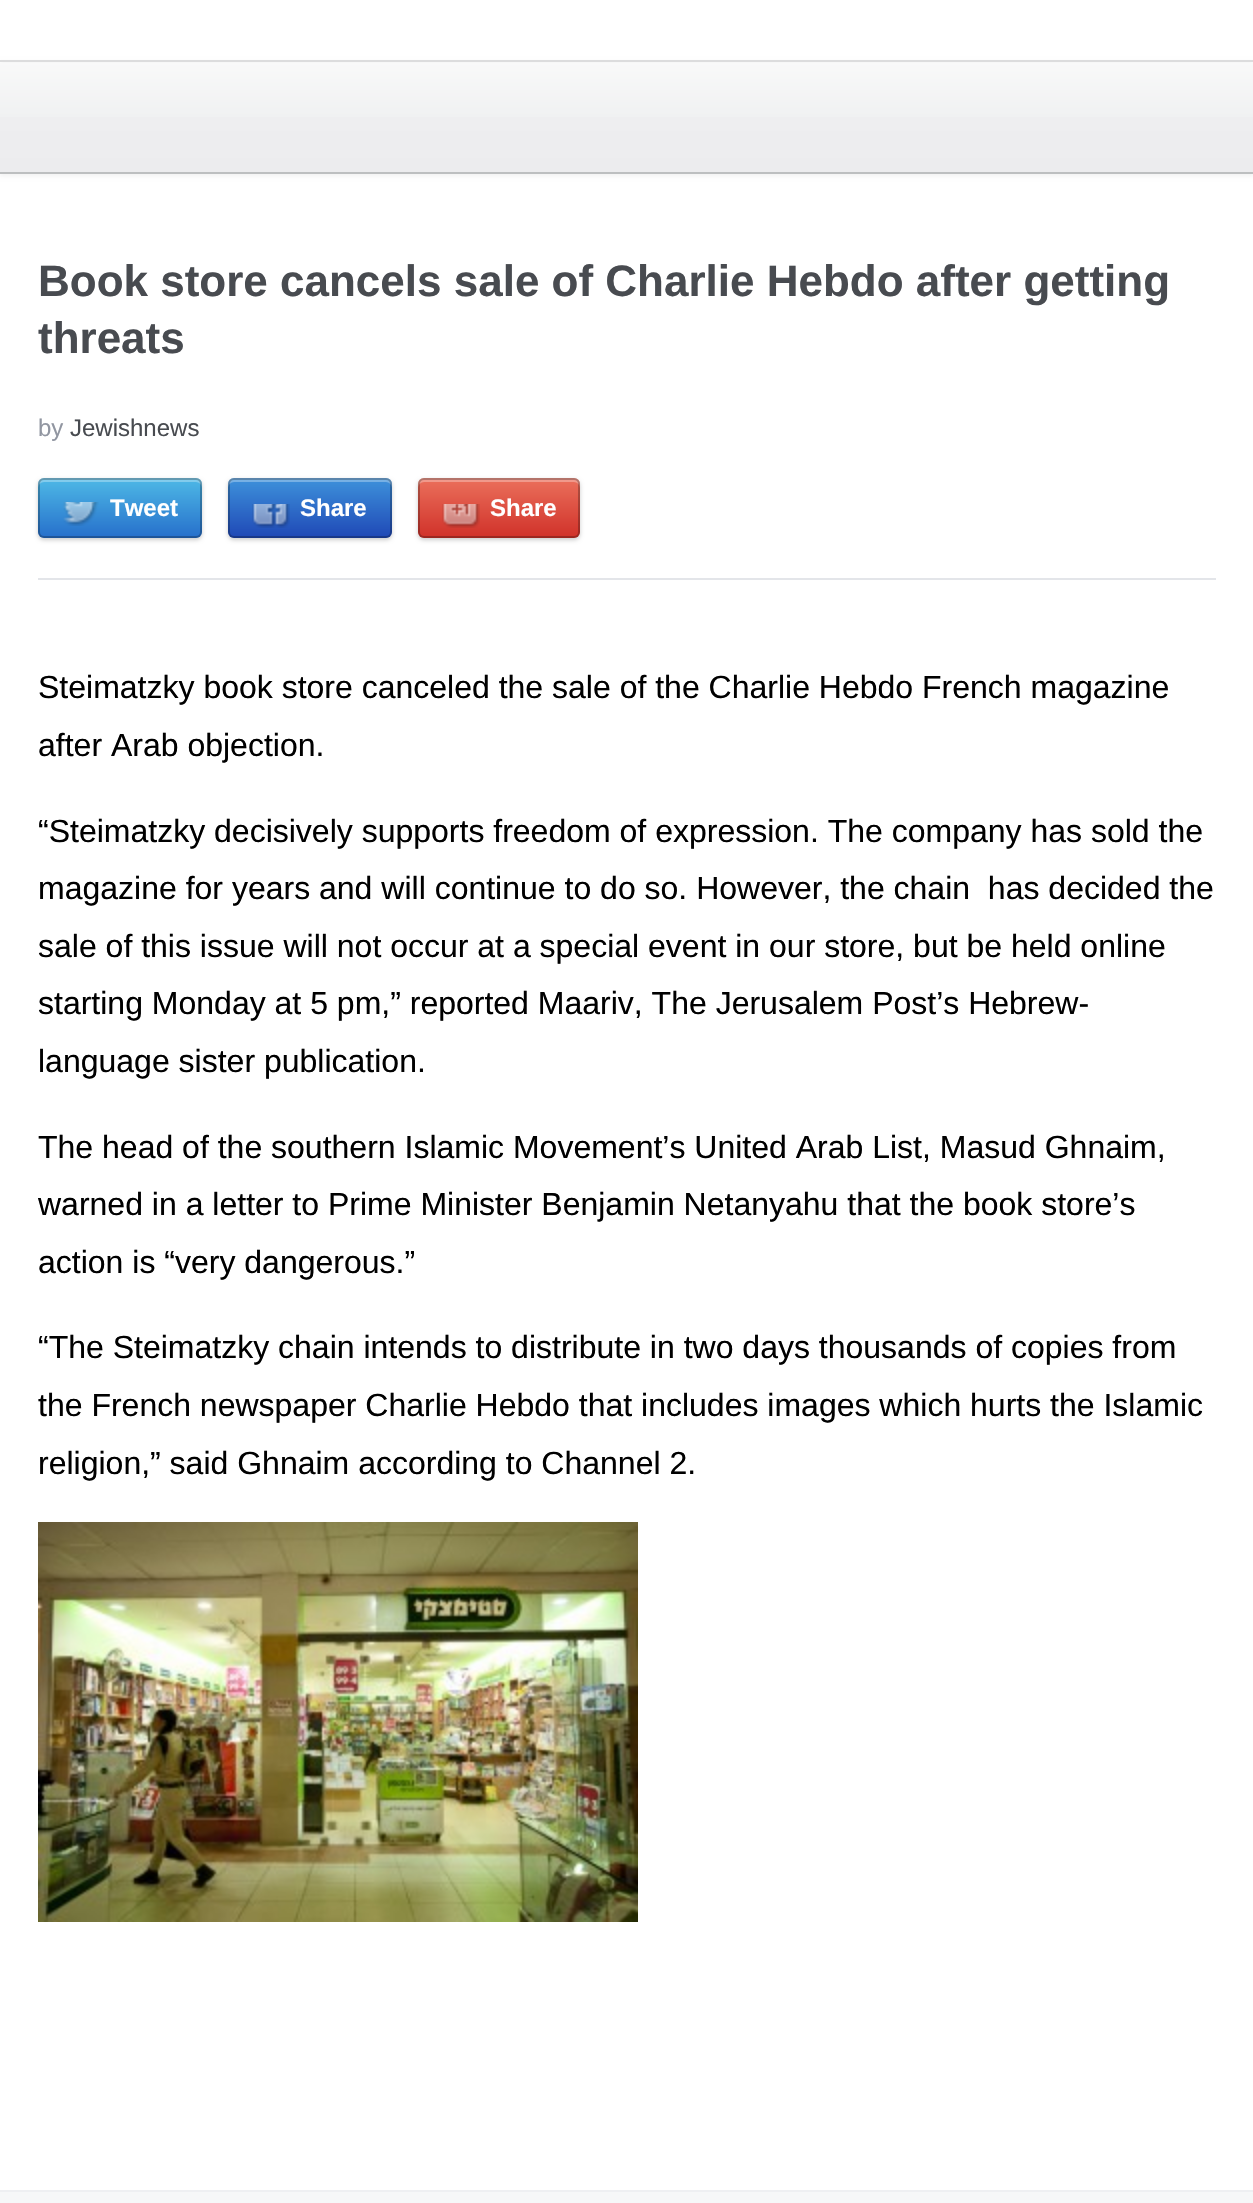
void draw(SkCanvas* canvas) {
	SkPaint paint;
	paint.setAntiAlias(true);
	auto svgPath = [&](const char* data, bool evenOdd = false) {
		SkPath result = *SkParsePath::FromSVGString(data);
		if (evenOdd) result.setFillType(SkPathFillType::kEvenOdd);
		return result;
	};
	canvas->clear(0xffffffff);
	paint.setColor(0x0d000000);
	paint.setMaskFilter(SkMaskFilter::MakeBlur(kNormal_SkBlurStyle, 2));
	canvas->drawRect(SkRect::MakeXYWH(0, 62, 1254, 114), paint);
	paint.setMaskFilter(nullptr);
	{
		const SkColor colors[] = {0xfff9f9f9, 0xfff0f1f2, 0xffeeeef0, 0xffececee};
		const float stops[] = {0, 0.5, 0.5, 1};
		const SkPoint ends[] = {{627, 62}, {627, 172}};
		paint.setShader(SkGradientShader::MakeLinear(ends, colors, stops, 4, SkTileMode::kClamp));
		paint.setAlpha(255);
	}
	canvas->drawRect(SkRect::MakeXYWH(0, 63, 1253, 109), paint);
	paint.setShader(nullptr);
	paint.setColor(0xffdcdcdd);
	canvas->drawRect(SkRect::MakeXYWH(0, 60, 1253, 2), paint);
	paint.setColor(0xffbdbfc0);
	canvas->drawRect(SkRect::MakeXYWH(0, 172, 1253, 2), paint);
	SkFont f1(fontMgr->matchFamilyStyle("Liberation Sans", SkFontStyle::Bold()), 44);
	f1.setSubpixel(true);
	paint.setColor(0xff484b50);
	canvas->drawString("Book store cancels sale of Charlie Hebdo after getting", 38, 296, f1, paint);
	canvas->drawString("threats", 38, 353, f1, paint);
	paint.setColor(0xffe3e5e9);
	canvas->drawRect(SkRect::MakeXYWH(38, 578, 1178, 2), paint);
	SkFont f2(fontMgr->matchFamilyStyle("Liberation Sans", SkFontStyle::Normal()), 24);
	f2.setSubpixel(true);
	paint.setColor(0xff9196a1);
	canvas->drawString("by", 38, 436, f2, paint);
	paint.setColor(0xff484b50);
	canvas->drawString("Jewishnews", 70, 436, f2, paint);
	paint.setColor(0x33000000);
	paint.setMaskFilter(SkMaskFilter::MakeBlur(kNormal_SkBlurStyle, 2));
	canvas->drawRoundRect(SkRect::MakeXYWH(38, 480, 164, 60), 6, 6, paint);
	paint.setMaskFilter(nullptr);
	{
		const SkColor colors[] = {0xff4eb9e6, 0xff266fcb};
		const float stops[] = {0, 1};
		const SkPoint ends[] = {{120, 478}, {120, 538}};
		paint.setShader(SkGradientShader::MakeLinear(ends, colors, stops, 2, SkTileMode::kClamp));
		paint.setAlpha(255);
	}
	canvas->drawRoundRect(SkRect::MakeXYWH(38, 478, 164, 60), 6, 6, paint);
	paint.setShader(nullptr);
	paint.setColor(0x4dffffff);
	canvas->drawPath(svgPath("M44 482H196C199 482 202 485 202 488V484C202 481 199 478 196 478H44C41 478 38 481 38 484V488C38 485 41 482 44 482Z"), paint);
	paint.setStroke(true);
	paint.setStrokeWidth(2);
	paint.setColor(0x40000000);
	canvas->drawRoundRect(SkRect::MakeXYWH(39, 479, 162, 58), 5, 5, paint);
	canvas->drawImageRect(SkImages::DeferredFromEncodedData(SkData::MakeFromFileName("img1.png")), SkRect::MakeXYWH(63, 502, 36, 24), SkSamplingOptions());
	SkFont f3(fontMgr->matchFamilyStyle("Liberation Sans", SkFontStyle::Bold()), 24);
	f3.setSubpixel(true);
	paint.setStroke(false);
	paint.setColor(0xffffffff);
	canvas->drawString("Tweet", 110, 516, f3, paint);
	paint.setColor(0x33000000);
	paint.setMaskFilter(SkMaskFilter::MakeBlur(kNormal_SkBlurStyle, 2));
	canvas->drawRoundRect(SkRect::MakeXYWH(228, 480, 164, 60), 6, 6, paint);
	paint.setMaskFilter(nullptr);
	{
		const SkColor colors[] = {0xff3e92db, 0xff1f48b6};
		const float stops[] = {0, 1};
		const SkPoint ends[] = {{310, 478}, {310, 538}};
		paint.setShader(SkGradientShader::MakeLinear(ends, colors, stops, 2, SkTileMode::kClamp));
		paint.setAlpha(255);
	}
	canvas->drawRoundRect(SkRect::MakeXYWH(228, 478, 164, 60), 6, 6, paint);
	paint.setShader(nullptr);
	paint.setColor(0x4dffffff);
	canvas->drawPath(svgPath("M234 482H386C389 482 392 485 392 488V484C392 481 389 478 386 478H234C231 478 228 481 228 484V488C228 485 231 482 234 482Z"), paint);
	paint.setStroke(true);
	paint.setColor(0x40000000);
	canvas->drawRoundRect(SkRect::MakeXYWH(229, 479, 162, 58), 5, 5, paint);
	canvas->drawImageRect(SkImages::DeferredFromEncodedData(SkData::MakeFromFileName("img2.png")), SkRect::MakeXYWH(252, 504, 38, 24), SkSamplingOptions());
	paint.setStroke(false);
	paint.setColor(0xffffffff);
	canvas->drawString("Share", 300, 516, f3, paint);
	paint.setColor(0x33000000);
	paint.setMaskFilter(SkMaskFilter::MakeBlur(kNormal_SkBlurStyle, 2));
	canvas->drawRoundRect(SkRect::MakeXYWH(418, 480, 162, 60), 6, 6, paint);
	paint.setMaskFilter(nullptr);
	{
		const SkColor colors[] = {0xffeb705c, 0xffd03129};
		const float stops[] = {0, 1};
		const SkPoint ends[] = {{499, 478}, {499, 538}};
		paint.setShader(SkGradientShader::MakeLinear(ends, colors, stops, 2, SkTileMode::kClamp));
		paint.setAlpha(255);
	}
	canvas->drawRoundRect(SkRect::MakeXYWH(418, 478, 162, 60), 6, 6, paint);
	paint.setShader(nullptr);
	paint.setColor(0x4dffffff);
	canvas->drawPath(svgPath("M424 482H574C577 482 580 485 580 488V484C580 481 577 478 574 478H424C421 478 418 481 418 484V488C418 485 421 482 424 482Z"), paint);
	paint.setStroke(true);
	paint.setColor(0x40000000);
	canvas->drawRoundRect(SkRect::MakeXYWH(419, 479, 160, 58), 5, 5, paint);
	canvas->drawImageRect(SkImages::DeferredFromEncodedData(SkData::MakeFromFileName("img3.png")), SkRect::MakeXYWH(442, 504, 38, 24), SkSamplingOptions());
	paint.setStroke(false);
	paint.setColor(0xffffffff);
	canvas->drawString("Share", 490, 516, f3, paint);
	SkFont f4(fontMgr->matchFamilyStyle("Liberation Sans", SkFontStyle::Normal()), 32);
	f4.setSubpixel(true);
	paint.setColor(0xff000000);
	canvas->drawString("Steimatzky book store canceled the sale of the Charlie Hebdo French magazine", 38, 698, f4, paint);
	canvas->drawString("after Arab objection.", 38, 756, f4, paint);
	canvas->drawString("“Steimatzky decisively supports freedom of expression. The company has sold the", 38, 842, f4, paint);
	canvas->drawString("magazine for years and will continue to do so. However, the chain  has decided the", 38, 899, f4, paint);
	canvas->drawString("sale of this issue will not occur at a special event in our store, but be held online", 38, 957, f4, paint);
	canvas->drawString("starting Monday at 5 pm,” reported Maariv, The Jerusalem Post’s Hebrew-", 38, 1014, f4, paint);
	canvas->drawString("language sister publication.", 38, 1072, f4, paint);
	canvas->drawString("The head of the southern Islamic Movement’s United Arab List, Masud Ghnaim,", 38, 1158, f4, paint);
	canvas->drawString("warned in a letter to Prime Minister Benjamin Netanyahu that the book store’s", 38, 1215, f4, paint);
	canvas->drawString("action is “very dangerous.”", 38, 1273, f4, paint);
	canvas->drawString("“The Steimatzky chain intends to distribute in two days thousands of copies from", 38, 1358, f4, paint);
	canvas->drawString("the French newspaper Charlie Hebdo that includes images which hurts the Islamic", 38, 1416, f4, paint);
	canvas->drawString("religion,” said Ghnaim according to Channel 2.", 38, 1474, f4, paint);
	canvas->drawImageRect(SkImages::DeferredFromEncodedData(SkData::MakeFromFileName("img4.png")), SkRect::MakeXYWH(38, 1522, 600, 400), SkSamplingOptions());
	{
		const SkColor colors[] = {0xfff6f7f8, 0xffeeeff2};
		const float stops[] = {0, 1};
		const SkPoint ends[] = {{627, 1876}, {627, 2192}};
		paint.setShader(SkGradientShader::MakeLinear(ends, colors, stops, 2, SkTileMode::kClamp));
		paint.setAlpha(255);
	}
	canvas->drawRect(SkRect::MakeXYWH(0, 2190, 1253, 2), paint);
	{
		const SkColor colors[] = {0xfff6f7f8, 0xffeeeff2};
		const float stops[] = {0, 1};
		const SkPoint ends[] = {{627, 2192}, {627, 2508}};
		paint.setShader(SkGradientShader::MakeLinear(ends, colors, stops, 2, SkTileMode::kClamp));
		paint.setAlpha(255);
	}
	canvas->drawRect(SkRect::MakeXYWH(0, 2192, 1253, 11), paint);
}
